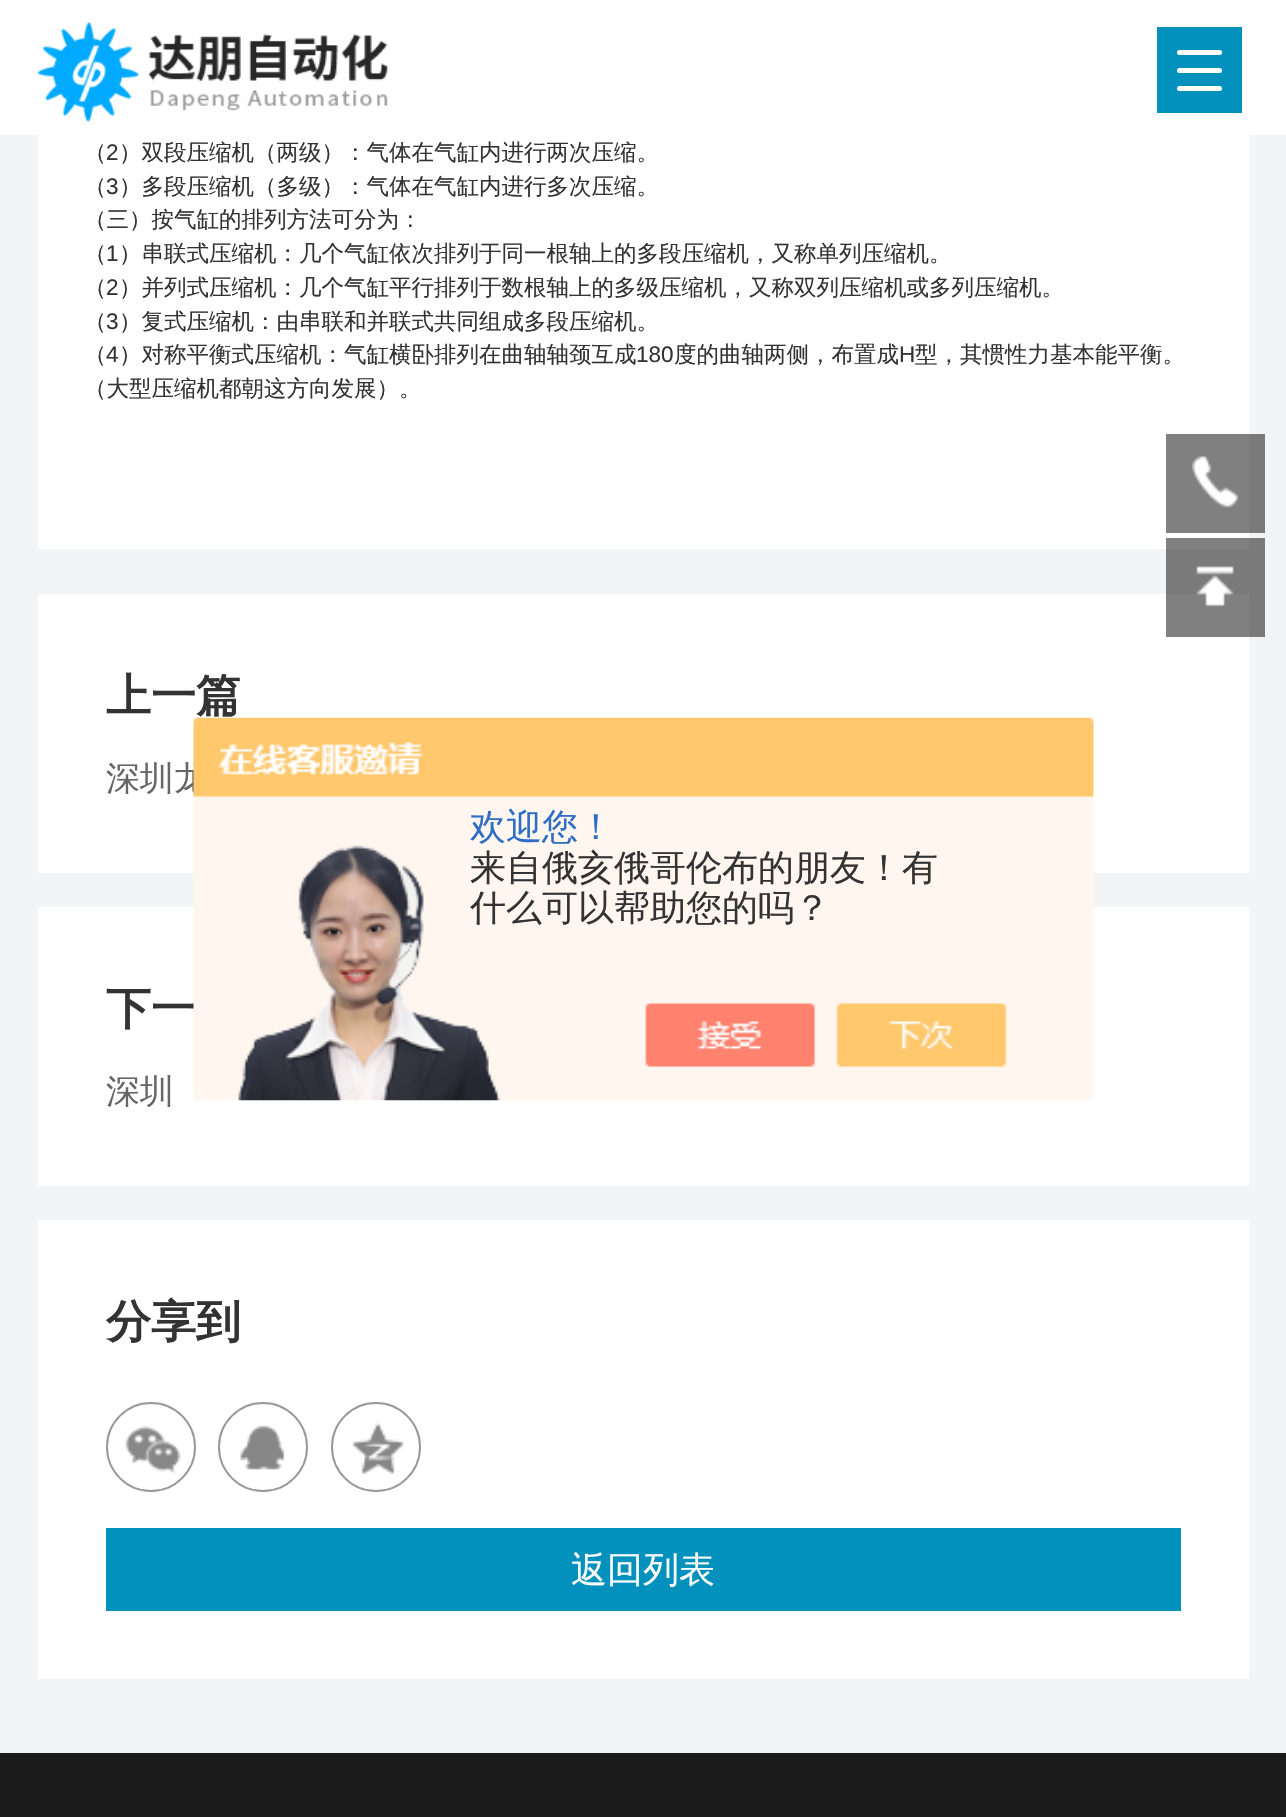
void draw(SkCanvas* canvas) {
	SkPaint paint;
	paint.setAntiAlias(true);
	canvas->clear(0xfff3f4f6);
	paint.setColor(0xffffffff);
	canvas->drawRect(SkRect::MakeXYWH(0, 0, 1286, 135), paint);
	canvas->drawImageRect(SkImages::DeferredFromEncodedData(SkData::MakeFromFileName("img1.png")), SkRect::MakeXYWH(38, 22, 351, 100), SkSamplingOptions());
	paint.setColor(0xff0291bc);
	canvas->drawRect(SkRect::MakeXYWH(1157, 27, 85, 86), paint);
	paint.setColor(0xffffffff);
	canvas->drawRoundRect(SkRect::MakeXYWH(1177, 50, 45, 5), 2.5, 2.5, paint);
	canvas->drawRoundRect(SkRect::MakeXYWH(1177, 68, 45, 5), 2.5, 2.5, paint);
	canvas->drawRoundRect(SkRect::MakeXYWH(1177, 86, 45, 5), 2.5, 2.5, paint);
	paint.setColor(0xff7a7a7b);
	canvas->drawRect(SkRect::MakeXYWH(1166, 538, 99, 99), paint);
	canvas->drawRect(SkRect::MakeXYWH(1249, 434, 16, 99), paint);
	paint.setColor(0xffffffff);
	canvas->drawRect(SkRect::MakeXYWH(38, 135, 1211, 414), paint);
	paint.setColor(0xff808080);
	canvas->drawRect(SkRect::MakeXYWH(1166, 538, 83, 11), paint);
	canvas->drawRect(SkRect::MakeXYWH(1166, 434, 83, 99), paint);
	SkFont f1(fontMgr->matchFamilyStyle("WenQuanYi Zen Hei", SkFontStyle(500, SkFontStyle::kNormal_Width, SkFontStyle::kUpright_Slant)), 22.5);
	f1.setSubpixel(true);
	paint.setColor(0xff333333);
	canvas->drawString("（", 84, 160, f1, paint);
	SkFont f2(fontMgr->matchFamilyStyle("Liberation Sans", SkFontStyle::Normal()), 22.5);
	f2.setSubpixel(true);
	canvas->drawString("2", 106, 160, f2, paint);
	canvas->drawString("）双段压缩机（两级）：气体在气缸内进行两次压缩。", 119, 160, f1, paint);
	canvas->drawString("（", 84, 194, f1, paint);
	canvas->drawString("3", 106, 194, f2, paint);
	canvas->drawString("）多段压缩机（多级）：气体在气缸内进行多次压缩。", 119, 194, f1, paint);
	canvas->drawString("（三）按气缸的排列方法可分为：", 84, 227, f1, paint);
	canvas->drawString("（", 84, 261, f1, paint);
	canvas->drawString("1", 106, 261, f2, paint);
	canvas->drawString("）串联式压缩机：几个气缸依次排列于同一根轴上的多段压缩机，又称单列压缩机。", 119, 261, f1, paint);
	canvas->drawString("（", 84, 295, f1, paint);
	canvas->drawString("2", 106, 295, f2, paint);
	canvas->drawString("）并列式压缩机：几个气缸平行排列于数根轴上的多级压缩机，又称双列压缩机或多列压缩机。", 119, 295, f1, paint);
	canvas->drawString("（", 84, 329, f1, paint);
	canvas->drawString("3", 106, 329, f2, paint);
	canvas->drawString("）复式压缩机：由串联和并联式共同组成多段压缩机。", 119, 329, f1, paint);
	canvas->drawString("（", 84, 362, f1, paint);
	canvas->drawString("4", 106, 362, f2, paint);
	canvas->drawString("）对称平衡式压缩机：气缸横卧排列在曲轴轴颈互成", 119, 362, f1, paint);
	canvas->drawString("180", 636, 362, f2, paint);
	canvas->drawString("度的曲轴两侧，布置成", 674, 362, f1, paint);
	canvas->drawString("H", 899, 362, f2, paint);
	canvas->drawString("型，其惯性力基本能平衡。", 915, 362, f1, paint);
	canvas->drawString("（大型压缩机都朝这方向发展）。", 84, 396, f1, paint);
	paint.setColor(0xffffffff);
	canvas->drawRect(SkRect::MakeXYWH(38, 594, 1211, 279), paint);
	paint.setColor(0xff808080);
	canvas->drawRect(SkRect::MakeXYWH(1166, 594, 83, 43), paint);
	SkFont f3(fontMgr->matchFamilyStyle("WenQuanYi Zen Hei", SkFontStyle::Bold()), 45);
	f3.setSubpixel(true);
	paint.setColor(0xff333333);
	canvas->drawString("上一篇", 106, 711, f3, paint);
	SkFont f4(fontMgr->matchFamilyStyle("WenQuanYi Zen Hei", SkFontStyle(500, SkFontStyle::kNormal_Width, SkFontStyle::kUpright_Slant)), 34);
	f4.setSubpixel(true);
	paint.setColor(0xff666666);
	canvas->drawString("深圳龙", 106, 790, f4, paint);
	paint.setColor(0xffffffff);
	canvas->drawRect(SkRect::MakeXYWH(38, 907, 1211, 279), paint);
	paint.setColor(0xff333333);
	canvas->drawString("下一", 106, 1024, f3, paint);
	paint.setColor(0xff666666);
	canvas->drawString("深圳", 106, 1103, f4, paint);
	paint.setColor(0xffffffff);
	canvas->drawRect(SkRect::MakeXYWH(38, 1220, 1211, 459), paint);
	paint.setColor(0xff333333);
	canvas->drawString("分享到", 106, 1337, f3, paint);
	paint.setStroke(true);
	paint.setStrokeWidth(2);
	paint.setColor(0xff999999);
	canvas->drawCircle(151, 1447, 44, paint);
	canvas->drawImageRect(SkImages::DeferredFromEncodedData(SkData::MakeFromFileName("img2.png")), SkRect::MakeXYWH(125, 1425, 56, 49), SkSamplingOptions());
	canvas->drawCircle(263, 1447, 44, paint);
	canvas->drawImageRect(SkImages::DeferredFromEncodedData(SkData::MakeFromFileName("img3.png")), SkRect::MakeXYWH(240, 1425, 45, 45), SkSamplingOptions());
	canvas->drawCircle(376, 1447, 44, paint);
	canvas->drawImageRect(SkImages::DeferredFromEncodedData(SkData::MakeFromFileName("img4.png")), SkRect::MakeXYWH(352, 1423, 52, 52), SkSamplingOptions());
	paint.setStroke(false);
	paint.setColor(0xff0291bc);
	canvas->drawRect(SkRect::MakeXYWH(106, 1528, 1075, 83), paint);
	SkFont f5(fontMgr->matchFamilyStyle("WenQuanYi Zen Hei", SkFontStyle(500, SkFontStyle::kNormal_Width, SkFontStyle::kUpright_Slant)), 36);
	f5.setSubpixel(true);
	paint.setColor(0xffffffff);
	canvas->drawString("返回列表", 571, 1582, f5, paint);
	canvas->drawImageRect(SkImages::DeferredFromEncodedData(SkData::MakeFromFileName("img5.png")), SkRect::MakeXYWH(1192, 456, 47, 52), SkSamplingOptions());
	canvas->drawImageRect(SkImages::DeferredFromEncodedData(SkData::MakeFromFileName("img6.png")), SkRect::MakeXYWH(1196, 566, 38, 41), SkSamplingOptions());
	canvas->drawImageRect(SkImages::DeferredFromEncodedData(SkData::MakeFromFileName("img7.png")), SkRect::MakeXYWH(193, 717, 901, 384), SkSamplingOptions());
	paint.setColor(0xff2e6ec6);
	canvas->drawString("欢迎您！", 470, 839, f5, paint);
	paint.setColor(0xff333333);
	canvas->drawString("来自俄亥俄哥伦布的朋友！有", 470, 880, f5, paint);
	canvas->drawString("什么可以帮助您的吗？", 470, 920, f5, paint);
	paint.setColor(0xff1b1b1b);
	canvas->drawRect(SkRect::MakeXYWH(0, 1753, 1286, 64), paint);
}
